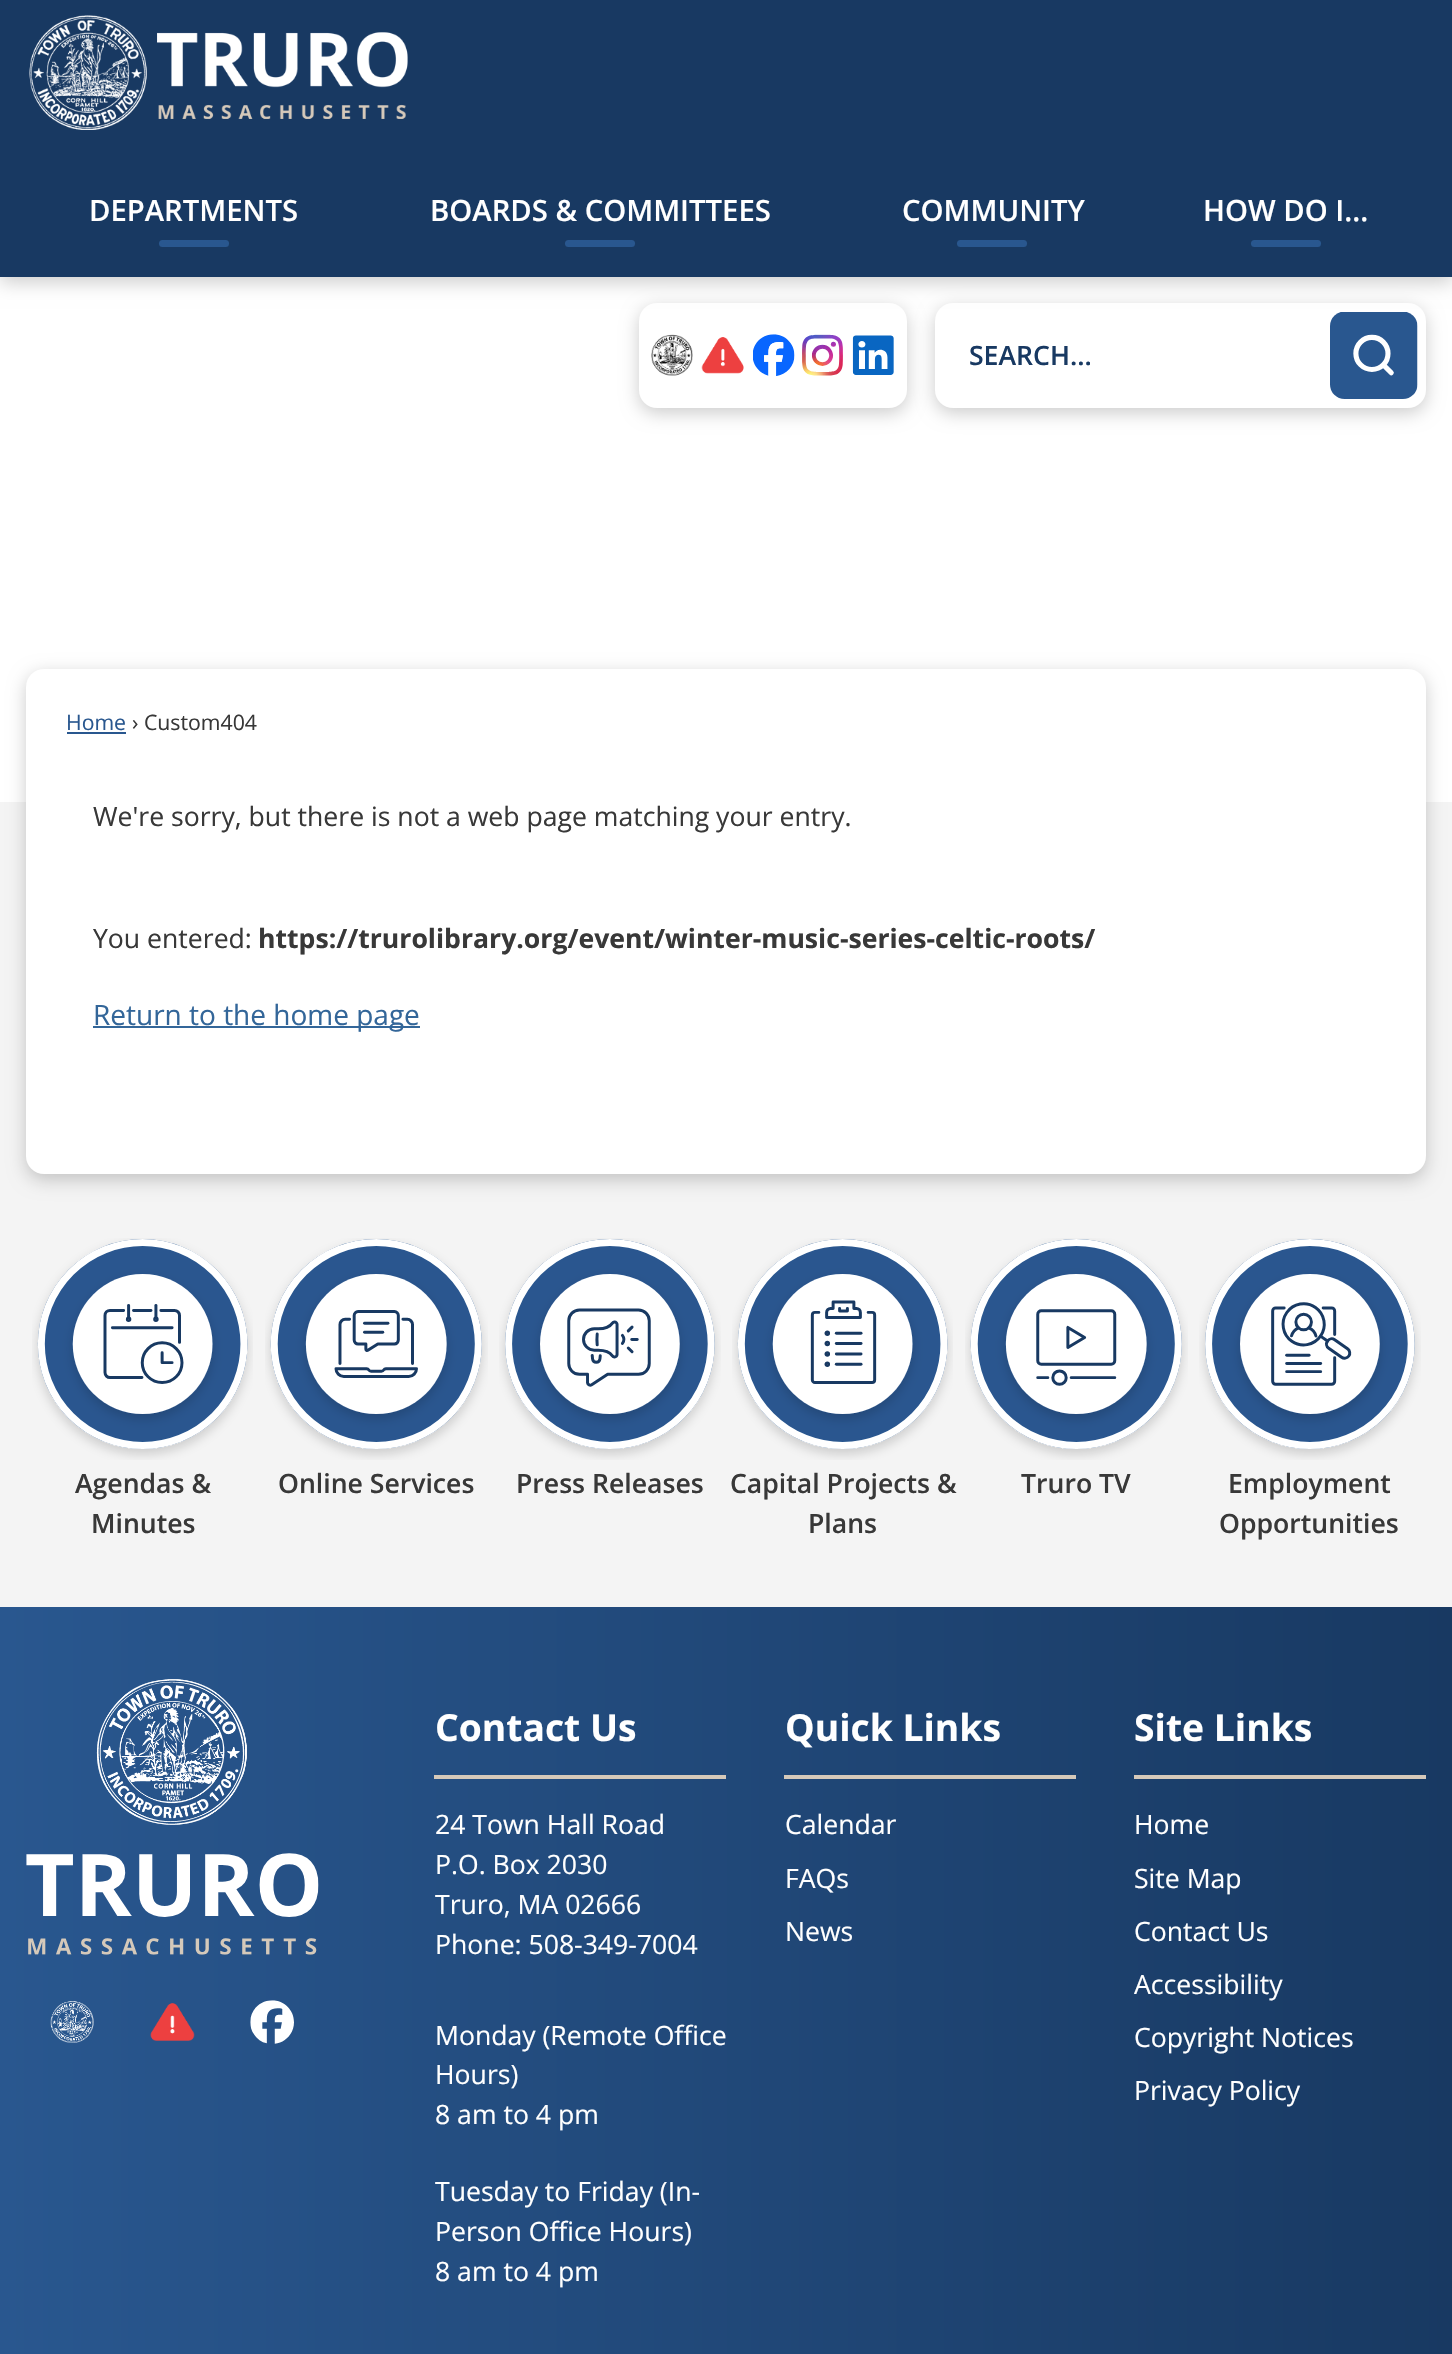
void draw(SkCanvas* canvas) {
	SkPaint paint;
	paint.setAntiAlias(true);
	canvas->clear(0xffffffff);
	paint.setColor(0x33000000);
	paint.setMaskFilter(SkMaskFilter::MakeBlur(kNormal_SkBlurStyle, 9));
	canvas->drawRoundRect(SkRect::MakeXYWH(639, 308, 268, 105), 18, 18, paint);
	paint.setMaskFilter(nullptr);
	paint.setColor(0xffffffff);
	canvas->drawRoundRect(SkRect::MakeXYWH(639, 303, 268, 105), 18, 18, paint);
	paint.setColor(0x33000000);
	paint.setMaskFilter(SkMaskFilter::MakeBlur(kNormal_SkBlurStyle, 9));
	canvas->drawRoundRect(SkRect::MakeXYWH(935, 308, 491, 105), 18, 18, paint);
	paint.setMaskFilter(nullptr);
	paint.setColor(0xffffffff);
	canvas->drawRoundRect(SkRect::MakeXYWH(935, 303, 491, 105), 18, 18, paint);
	paint.setColor(0x33000000);
	paint.setMaskFilter(SkMaskFilter::MakeBlur(kNormal_SkBlurStyle, 9));
	canvas->drawRect(SkRect::MakeXYWH(0, 5, 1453, 277), paint);
	paint.setMaskFilter(nullptr);
	paint.setColor(0xff183962);
	canvas->drawRect(SkRect::MakeXYWH(0, 0, 1452, 277), paint);
	canvas->drawImageRect(SkImages::DeferredFromEncodedData(SkData::MakeFromFileName("img1.png")), SkRect::MakeXYWH(29, 15, 379, 115), SkSamplingOptions());
	SkFont f1(fontMgr->matchFamilyStyle("Open Sans", SkFontStyle(600, SkFontStyle::kNormal_Width, SkFontStyle::kUpright_Slant)), 29.25);
	f1.setSubpixel(true);
	paint.setColor(0xffffffff);
	canvas->drawString("DEPARTMENTS", 89, 221, f1, paint);
	paint.setColor(0xff29578f);
	canvas->drawRoundRect(SkRect::MakeXYWH(159, 240, 70, 7), 3.5, 3.5, paint);
	paint.setColor(0xffffffff);
	canvas->drawString("BOARDS & COMMITTEES", 430, 221, f1, paint);
	paint.setColor(0xff29578f);
	canvas->drawRoundRect(SkRect::MakeXYWH(565, 240, 70, 7), 3.5, 3.5, paint);
	paint.setColor(0xffffffff);
	canvas->drawString("COMMUNITY", 902, 221, f1, paint);
	paint.setColor(0xff29578f);
	canvas->drawRoundRect(SkRect::MakeXYWH(957, 240, 70, 7), 3.5, 3.5, paint);
	paint.setColor(0xffffffff);
	canvas->drawString("HOW DO I...", 1203, 221, f1, paint);
	paint.setColor(0xff29578f);
	canvas->drawRoundRect(SkRect::MakeXYWH(1251, 240, 70, 7), 3.5, 3.5, paint);
	canvas->drawImageRect(SkImages::DeferredFromEncodedData(SkData::MakeFromFileName("img2.png")), SkRect::MakeXYWH(651, 334, 42, 42), SkSamplingOptions());
	canvas->drawImageRect(SkImages::DeferredFromEncodedData(SkData::MakeFromFileName("img3.png")), SkRect::MakeXYWH(701, 337, 43, 37), SkSamplingOptions());
	canvas->drawImageRect(SkImages::DeferredFromEncodedData(SkData::MakeFromFileName("img4.png")), SkRect::MakeXYWH(753, 334, 42, 42), SkSamplingOptions());
	canvas->drawImageRect(SkImages::DeferredFromEncodedData(SkData::MakeFromFileName("img5.png")), SkRect::MakeXYWH(802, 334, 41, 42), SkSamplingOptions());
	canvas->drawImageRect(SkImages::DeferredFromEncodedData(SkData::MakeFromFileName("img6.png")), SkRect::MakeXYWH(852, 335, 42, 40), SkSamplingOptions());
	SkFont f2(fontMgr->matchFamilyStyle("Open Sans", SkFontStyle(600, SkFontStyle::kNormal_Width, SkFontStyle::kUpright_Slant)), 26.6);
	f2.setSubpixel(true);
	paint.setColor(0xff183962);
	canvas->drawString("SEARCH...", 969, 365, f2, paint);
	canvas->drawImageRect(SkImages::DeferredFromEncodedData(SkData::MakeFromFileName("img7.png")), SkRect::MakeXYWH(1330, 312, 88, 87), SkSamplingOptions());
	paint.setColor(0xfff4f4f4);
	canvas->drawRect(SkRect::MakeXYWH(0, 802, 1452, 400), paint);
	paint.setColor(0x33000000);
	paint.setMaskFilter(SkMaskFilter::MakeBlur(kNormal_SkBlurStyle, 9));
	canvas->drawRoundRect(SkRect::MakeXYWH(26, 674, 1400, 506), 18, 18, paint);
	paint.setMaskFilter(nullptr);
	paint.setColor(0xffffffff);
	canvas->drawRoundRect(SkRect::MakeXYWH(26, 669, 1400, 505), 18, 18, paint);
	SkFont f3(fontMgr->matchFamilyStyle("Open Sans", SkFontStyle::Normal()), 21.25);
	f3.setSubpixel(true);
	paint.setColor(0xff29578f);
	canvas->drawString("Home", 66, 730, f3, paint);
	canvas->drawRect(SkRect::MakeXYWH(67, 732, 59, 2), paint);
	paint.setColor(0xff383838);
	canvas->drawString("› Custom404", 132, 730, f3, paint);
	SkFont f4(fontMgr->matchFamilyStyle("Open Sans", SkFontStyle::Normal()), 26.6);
	f4.setSubpixel(true);
	canvas->drawString("We're sorry, but there is not a web page matching your entry.", 93, 826, f4, paint);
	canvas->drawString("You entered:", 93, 948, f4, paint);
	SkFont f5(fontMgr->matchFamilyStyle("Open Sans", SkFontStyle::Bold()), 26.6);
	f5.setSubpixel(true);
	canvas->drawString("https://trurolibrary.org/event/winter-music-series-celtic-roots/", 258, 948, f5, paint);
	paint.setColor(0xff336699);
	canvas->drawRect(SkRect::MakeXYWH(93, 1026, 327, 2), paint);
	SkFont f6(fontMgr->matchFamilyStyle("Open Sans", SkFontStyle::Normal()), 28);
	f6.setSubpixel(true);
	canvas->drawString("Return to the home page", 93, 1025, f6, paint);
	paint.setColor(0xfff4f4f4);
	canvas->drawRect(SkRect::MakeXYWH(0, 1202, 1452, 405), paint);
	canvas->drawImageRect(SkImages::DeferredFromEncodedData(SkData::MakeFromFileName("img8.png")), SkRect::MakeXYWH(32, 1238, 221, 222), SkSamplingOptions());
	canvas->drawImageRect(SkImages::DeferredFromEncodedData(SkData::MakeFromFileName("img9.png")), SkRect::MakeXYWH(103, 1304, 81, 80), SkSamplingOptions());
	paint.setColor(0xff383838);
	canvas->drawString("Agendas &", 75, 1493, f2, paint);
	canvas->drawString("Minutes", 91, 1533, f2, paint);
	canvas->drawImageRect(SkImages::DeferredFromEncodedData(SkData::MakeFromFileName("img10.png")), SkRect::MakeXYWH(265, 1238, 223, 222), SkSamplingOptions());
	canvas->drawImageRect(SkImages::DeferredFromEncodedData(SkData::MakeFromFileName("img11.png")), SkRect::MakeXYWH(334, 1310, 84, 68), SkSamplingOptions());
	canvas->drawString("Online Services", 278, 1493, f2, paint);
	canvas->drawImageRect(SkImages::DeferredFromEncodedData(SkData::MakeFromFileName("img12.png")), SkRect::MakeXYWH(499, 1238, 222, 222), SkSamplingOptions());
	canvas->drawImageRect(SkImages::DeferredFromEncodedData(SkData::MakeFromFileName("img13.png")), SkRect::MakeXYWH(567, 1308, 84, 79), SkSamplingOptions());
	canvas->drawString("Press Releases", 516, 1493, f2, paint);
	canvas->drawImageRect(SkImages::DeferredFromEncodedData(SkData::MakeFromFileName("img14.png")), SkRect::MakeXYWH(732, 1238, 221, 222), SkSamplingOptions());
	canvas->drawImageRect(SkImages::DeferredFromEncodedData(SkData::MakeFromFileName("img15.png")), SkRect::MakeXYWH(810, 1300, 67, 84), SkSamplingOptions());
	canvas->drawString("Capital Projects &", 730, 1493, f2, paint);
	canvas->drawString("Plans", 808, 1533, f2, paint);
	canvas->drawImageRect(SkImages::DeferredFromEncodedData(SkData::MakeFromFileName("img16.png")), SkRect::MakeXYWH(965, 1238, 223, 222), SkSamplingOptions());
	canvas->drawImageRect(SkImages::DeferredFromEncodedData(SkData::MakeFromFileName("img17.png")), SkRect::MakeXYWH(1036, 1309, 81, 77), SkSamplingOptions());
	canvas->drawString("Truro TV", 1021, 1493, f2, paint);
	canvas->drawImageRect(SkImages::DeferredFromEncodedData(SkData::MakeFromFileName("img18.png")), SkRect::MakeXYWH(1199, 1238, 222, 222), SkSamplingOptions());
	canvas->drawImageRect(SkImages::DeferredFromEncodedData(SkData::MakeFromFileName("img19.png")), SkRect::MakeXYWH(1271, 1302, 81, 84), SkSamplingOptions());
	canvas->drawString("Employment", 1228, 1493, f2, paint);
	canvas->drawString("Opportunities", 1219, 1533, f2, paint);
	{
		const SkColor colors[] = {0xff29578f, 0xff183962};
		const float stops[] = {0, 1};
		const SkPoint ends[] = {{0, 2067}, {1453, 2067}};
		paint.setShader(SkGradientShader::MakeLinear(ends, colors, stops, 2, SkTileMode::kClamp));
		paint.setAlpha(255);
	}
	canvas->drawRect(SkRect::MakeXYWH(0, 1607, 1452, 747), paint);
	canvas->drawImageRect(SkImages::DeferredFromEncodedData(SkData::MakeFromFileName("img20.png")), SkRect::MakeXYWH(26, 1679, 293, 276), SkSamplingOptions());
	canvas->drawImageRect(SkImages::DeferredFromEncodedData(SkData::MakeFromFileName("img21.png")), SkRect::MakeXYWH(50, 2001, 44, 42), SkSamplingOptions());
	canvas->drawImageRect(SkImages::DeferredFromEncodedData(SkData::MakeFromFileName("img22.png")), SkRect::MakeXYWH(150, 2003, 45, 38), SkSamplingOptions());
	canvas->drawImageRect(SkImages::DeferredFromEncodedData(SkData::MakeFromFileName("img23.png")), SkRect::MakeXYWH(250, 2000, 44, 44), SkSamplingOptions());
	paint.setShader(nullptr);
	paint.setColor(0xffd5c9ba);
	canvas->drawRect(SkRect::MakeXYWH(434, 1775, 292, 4), paint);
	SkFont f7(fontMgr->matchFamilyStyle("Open Sans", SkFontStyle::Bold()), 37.25);
	f7.setSubpixel(true);
	paint.setColor(0xffffffff);
	canvas->drawString("Contact Us", 435, 1741, f7, paint);
	canvas->drawString("24 Town Hall Road", 435, 1834, f4, paint);
	canvas->drawString("P.O. Box 2030", 435, 1874, f4, paint);
	canvas->drawString("Truro, MA 02666", 435, 1914, f4, paint);
	canvas->drawString("Phone: 508-349-7004", 435, 1954, f4, paint);
	canvas->drawString("Monday (Remote Office", 435, 2045, f4, paint);
	canvas->drawString("Hours)", 435, 2084, f4, paint);
	canvas->drawString("8 am to 4 pm", 435, 2124, f4, paint);
	canvas->drawString("Tuesday to Friday (In-", 435, 2201, f4, paint);
	canvas->drawString("Person Office Hours)", 435, 2241, f4, paint);
	canvas->drawString("8 am to 4 pm", 435, 2281, f4, paint);
	paint.setColor(0xffd5c9ba);
	canvas->drawRect(SkRect::MakeXYWH(784, 1775, 292, 4), paint);
	paint.setColor(0xffffffff);
	canvas->drawString("Quick Links", 785, 1741, f7, paint);
	canvas->drawString("Calendar", 785, 1834, f4, paint);
	canvas->drawString("FAQs", 785, 1888, f4, paint);
	canvas->drawString("News", 785, 1941, f4, paint);
	paint.setColor(0xffd5c9ba);
	canvas->drawRect(SkRect::MakeXYWH(1134, 1775, 292, 4), paint);
	paint.setColor(0xffffffff);
	canvas->drawString("Site Links", 1134, 1741, f7, paint);
	canvas->drawString("Home", 1134, 1834, f4, paint);
	canvas->drawString("Site Map", 1134, 1888, f4, paint);
	canvas->drawString("Contact Us", 1134, 1941, f4, paint);
	canvas->drawString("Accessibility", 1134, 1994, f4, paint);
	canvas->drawString("Copyright Notices", 1134, 2047, f4, paint);
	canvas->drawString("Privacy Policy", 1134, 2100, f4, paint);
}
